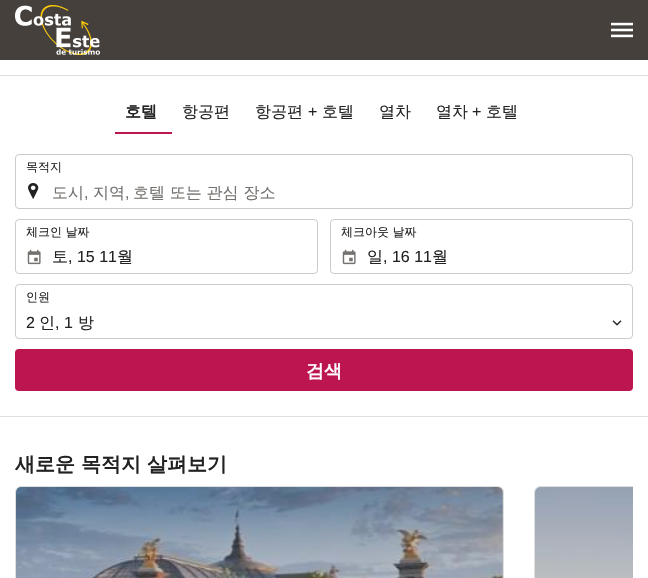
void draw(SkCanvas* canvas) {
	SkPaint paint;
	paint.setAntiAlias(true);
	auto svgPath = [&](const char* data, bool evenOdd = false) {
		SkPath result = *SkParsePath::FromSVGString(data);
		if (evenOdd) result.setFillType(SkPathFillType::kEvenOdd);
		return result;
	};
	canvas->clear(0xffffffff);
	paint.setColor(0xff46403c);
	canvas->drawRect(SkRect::MakeXYWH(0, 0, 648, 60), paint);
	canvas->drawImageRect(SkImages::DeferredFromEncodedData(SkData::MakeFromFileName("img1.png")), SkRect::MakeXYWH(15, 5, 85, 50), SkSamplingOptions());
	canvas->drawImageRect(SkImages::DeferredFromEncodedData(SkData::MakeFromFileName("img2.png")), SkRect::MakeXYWH(611, 22, 22, 16), SkSamplingOptions());
	paint.setColor(0xffdfdfdf);
	canvas->drawRect(SkRect::MakeXYWH(0, 75, 648, 1), paint);
	canvas->drawRect(SkRect::MakeXYWH(0, 416, 648, 1), paint);
	paint.setColor(0xffbd1550);
	canvas->drawRect(SkRect::MakeXYWH(115, 132, 57, 2), paint);
	SkFont f1(fontMgr->matchFamilyStyle("WenQuanYi Zen Hei", SkFontStyle::Bold()), 16);
	f1.setSubpixel(true);
	paint.setColor(0xff222222);
	canvas->drawString("호텔", 125, 117, f1, paint);
	SkFont f2(fontMgr->matchFamilyStyle("WenQuanYi Zen Hei", SkFontStyle(500, SkFontStyle::kNormal_Width, SkFontStyle::kUpright_Slant)), 16);
	f2.setSubpixel(true);
	canvas->drawString("항공편", 182, 117, f2, paint);
	canvas->drawString("항공편", 255, 117, f2, paint);
	SkFont f3(fontMgr->matchFamilyStyle("Liberation Sans", SkFontStyle::Normal()), 16);
	f3.setSubpixel(true);
	canvas->drawString("+", 308, 117, f3, paint);
	canvas->drawString("호텔", 322, 117, f2, paint);
	canvas->drawString("열차", 379, 117, f2, paint);
	canvas->drawString("열차", 436, 117, f2, paint);
	canvas->drawString("+", 472, 117, f3, paint);
	canvas->drawString("호텔", 486, 117, f2, paint);
	canvas->drawImageRect(SkImages::DeferredFromEncodedData(SkData::MakeFromFileName("img3.png")), SkRect::MakeXYWH(28, 183, 11, 16), SkSamplingOptions());
	paint.setStroke(true);
	paint.setStrokeWidth(1);
	paint.setColor(0xffd0cbc9);
	canvas->drawRoundRect(SkRect::MakeXYWH(15.5, 154.5, 617, 54), 3.5, 3.5, paint);
	SkFont f4(fontMgr->matchFamilyStyle("WenQuanYi Zen Hei", SkFontStyle(500, SkFontStyle::kNormal_Width, SkFontStyle::kUpright_Slant)), 12);
	f4.setSubpixel(true);
	paint.setStroke(false);
	paint.setColor(0xff222222);
	canvas->drawString("목적지", 26, 171, f4, paint);
	paint.setColor(0xff74716e);
	canvas->drawString("도시", 52, 198, f2, paint);
	canvas->drawString(",", 84, 198, f3, paint);
	canvas->drawString("지역", 93, 198, f2, paint);
	canvas->drawString(",", 125, 198, f3, paint);
	canvas->drawString("호텔 또는 관심 장소", 133, 198, f2, paint);
	canvas->drawImageRect(SkImages::DeferredFromEncodedData(SkData::MakeFromFileName("img4.png")), SkRect::MakeXYWH(27, 249, 14, 16), SkSamplingOptions());
	paint.setStroke(true);
	paint.setColor(0xffd0cbc9);
	canvas->drawRoundRect(SkRect::MakeXYWH(15.5, 219.5, 302, 54), 3.5, 3.5, paint);
	paint.setStroke(false);
	paint.setColor(0xff222222);
	canvas->drawString("체크인 날짜", 26, 236, f4, paint);
	canvas->drawString("토", 52, 262, f2, paint);
	canvas->drawString(", 15 11", 68, 262, f3, paint);
	canvas->drawString("월", 117, 262, f2, paint);
	canvas->drawImageRect(SkImages::DeferredFromEncodedData(SkData::MakeFromFileName("img4.png")), SkRect::MakeXYWH(342, 249, 14, 16), SkSamplingOptions());
	paint.setStroke(true);
	paint.setColor(0xffd0cbc9);
	canvas->drawRoundRect(SkRect::MakeXYWH(330.5, 219.5, 302, 54), 3.5, 3.5, paint);
	paint.setStroke(false);
	paint.setColor(0xff222222);
	canvas->drawString("체크아웃 날짜", 341, 236, f4, paint);
	canvas->drawString("일", 367, 262, f2, paint);
	canvas->drawString(", 16 11", 383, 262, f3, paint);
	canvas->drawString("월", 432, 262, f2, paint);
	paint.setStroke(true);
	paint.setColor(0xffd0cbc9);
	canvas->drawRoundRect(SkRect::MakeXYWH(15.5, 284.5, 617, 54), 3.5, 3.5, paint);
	paint.setStroke(false);
	paint.setColor(0xff222222);
	canvas->drawString("인원", 26, 301, f4, paint);
	canvas->drawString("2", 26, 328, f3, paint);
	canvas->drawString("인", 39, 328, f2, paint);
	canvas->drawString(", 1", 55, 328, f3, paint);
	canvas->drawString("방", 78, 328, f2, paint);
	canvas->drawImageRect(SkImages::DeferredFromEncodedData(SkData::MakeFromFileName("img5.png")), SkRect::MakeXYWH(612, 320, 10, 6), SkSamplingOptions());
	paint.setColor(0xffbd1550);
	canvas->drawRoundRect(SkRect::MakeXYWH(15, 349, 618, 42), 4, 4, paint);
	SkFont f5(fontMgr->matchFamilyStyle("WenQuanYi Zen Hei", SkFontStyle::Bold()), 18);
	f5.setSubpixel(true);
	paint.setColor(0xffffffff);
	canvas->drawString("검색", 306, 377, f5, paint);
	SkFont f6(fontMgr->matchFamilyStyle("WenQuanYi Zen Hei", SkFontStyle::Bold()), 20);
	f6.setSubpixel(true);
	paint.setColor(0xff222222);
	canvas->drawString("새로운 목적지 살펴보기", 15, 471, f6, paint);
	paint.setStroke(true);
	paint.setColor(0xffdfdfdf);
	canvas->drawRoundRect(SkRect::MakeXYWH(15.5, 486.5, 488, 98), 5.5, 5.5, paint);
	canvas->drawImageRect(SkImages::DeferredFromEncodedData(SkData::MakeFromFileName("img6.png")), SkRect::MakeXYWH(16, 487, 487, 91), SkSamplingOptions());
	paint.setStroke(false);
	paint.setColor(0x4d38424e);
	canvas->drawPath(svgPath("M22 487H497C500.5 487 503 489.5 503 493V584H16V493C16 489.5 18.5 487 22 487Z"), paint);
	canvas->save();
	canvas->clipRect(SkRect::MakeXYWH(15, 486, 618, 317));
	paint.setStroke(true);
	paint.setColor(0xffdfdfdf);
	canvas->drawRoundRect(SkRect::MakeXYWH(534.5, 486.5, 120, 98), 5.5, 5.5, paint);
	canvas->restore();
	canvas->drawImageRect(SkImages::DeferredFromEncodedData(SkData::MakeFromFileName("img7.png")), SkRect::MakeXYWH(535, 487, 98, 91), SkSamplingOptions());
	paint.setStroke(false);
	paint.setColor(0x4d38424e);
	canvas->drawPath(svgPath("M541 487H633V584H535V493C535 489.5 537.5 487 541 487Z"), paint);
}
